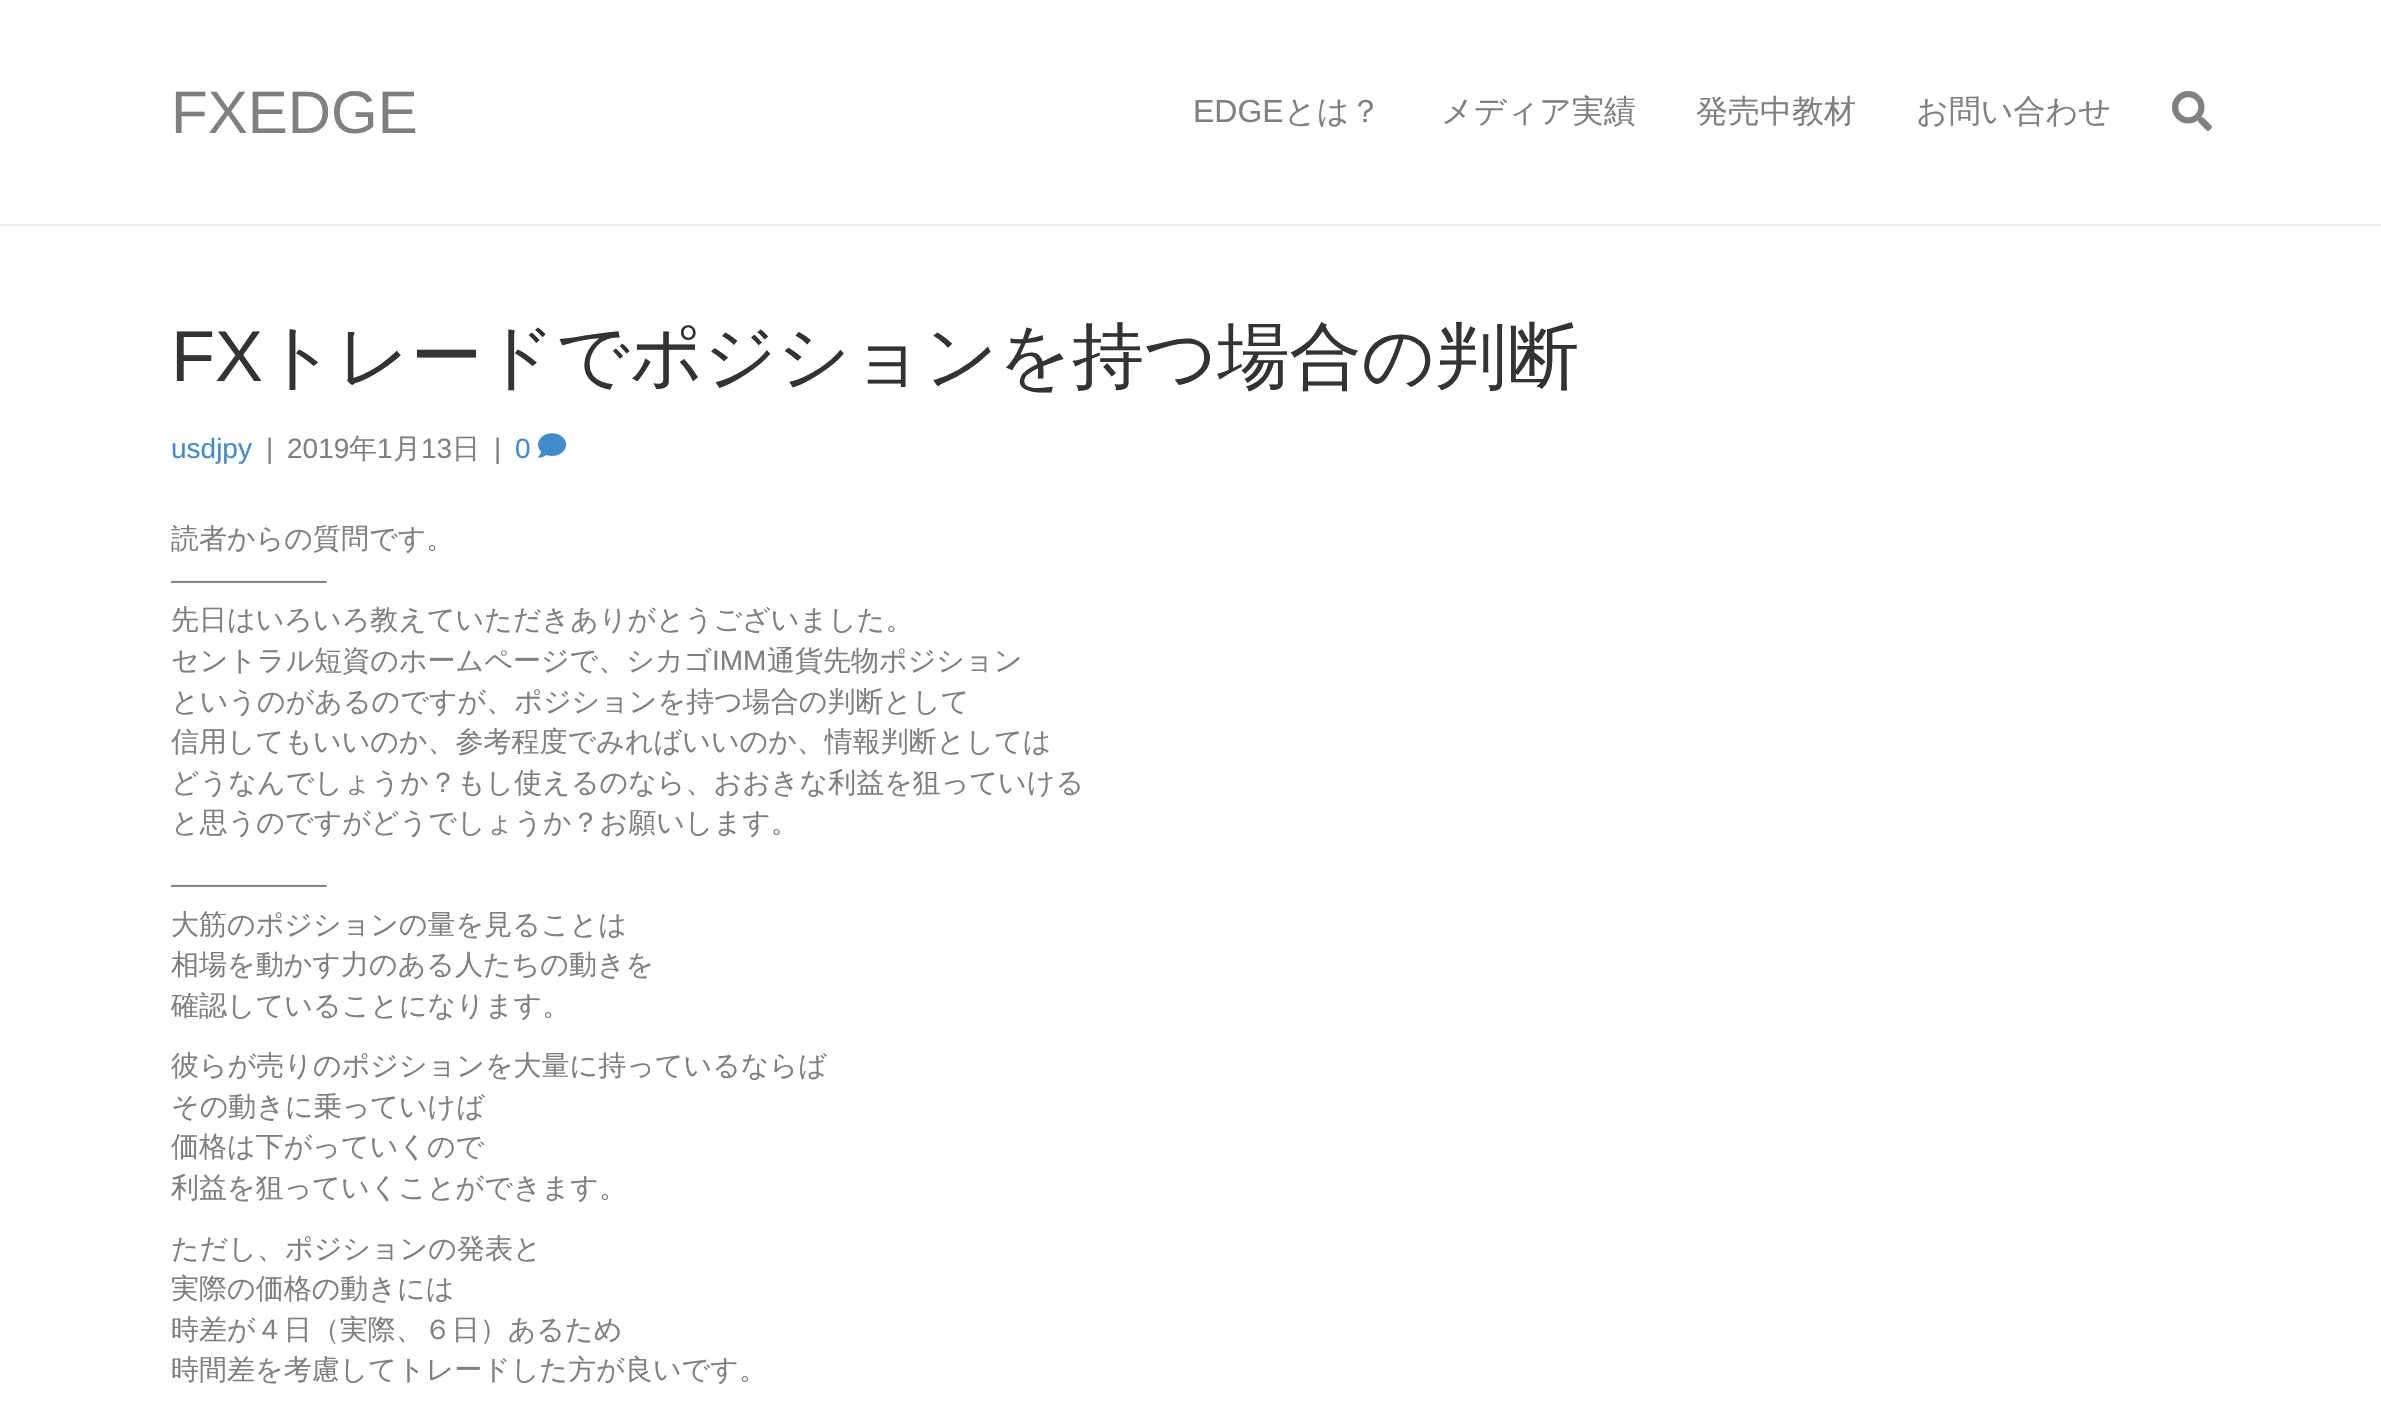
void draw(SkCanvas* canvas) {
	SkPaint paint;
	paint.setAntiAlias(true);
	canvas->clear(0xffffffff);
	paint.setColor(0xffeeeeee);
	canvas->drawRect(SkRect::MakeXYWH(0, 224, 2381, 2), paint);
	SkFont f1(fontMgr->matchFamilyStyle("Liberation Sans", SkFontStyle::Normal()), 60);
	f1.setSubpixel(true);
	paint.setColor(0xff808080);
	canvas->drawString("FXEDGE", 171, 133, f1, paint);
	SkFont f2(fontMgr->matchFamilyStyle("Liberation Sans", SkFontStyle::Normal()), 32);
	f2.setSubpixel(true);
	canvas->drawString("EDGE", 1193, 122, f2, paint);
	SkFont f3(fontMgr->matchFamilyStyle("WenQuanYi Zen Hei", SkFontStyle(500, SkFontStyle::kNormal_Width, SkFontStyle::kUpright_Slant)), 32);
	f3.setSubpixel(true);
	canvas->drawString("とは？", 1284, 122, f3, paint);
	canvas->drawString("メディア実績", 1441, 122, f3, paint);
	canvas->drawString("発売中教材", 1696, 122, f3, paint);
	canvas->drawString("お問い合わせ", 1916, 122, f3, paint);
	canvas->drawImageRect(SkImages::DeferredFromEncodedData(SkData::MakeFromFileName("img1.png")), SkRect::MakeXYWH(2172, 91, 40, 40), SkSamplingOptions());
	SkFont f4(fontMgr->matchFamilyStyle("Liberation Sans", SkFontStyle::Normal()), 72);
	f4.setSubpixel(true);
	paint.setColor(0xff333333);
	canvas->drawString("FX", 171, 381, f4, paint);
	SkFont f5(fontMgr->matchFamilyStyle("WenQuanYi Zen Hei", SkFontStyle(500, SkFontStyle::kNormal_Width, SkFontStyle::kUpright_Slant)), 72);
	f5.setSubpixel(true);
	canvas->drawString("トレードでポジションを持つ場合の判断", 263, 381, f5, paint);
	SkFont f6(fontMgr->matchFamilyStyle("Liberation Sans", SkFontStyle::Normal()), 28);
	f6.setSubpixel(true);
	paint.setColor(0xff428bca);
	canvas->drawString("usdjpy", 171, 458, f6, paint);
	paint.setColor(0xff808080);
	canvas->drawString("|", 266, 458, f6, paint);
	canvas->drawString("2019", 287, 458, f6, paint);
	SkFont f7(fontMgr->matchFamilyStyle("WenQuanYi Zen Hei", SkFontStyle(500, SkFontStyle::kNormal_Width, SkFontStyle::kUpright_Slant)), 28);
	f7.setSubpixel(true);
	canvas->drawString("年", 349, 458, f7, paint);
	canvas->drawString("1", 377, 458, f6, paint);
	canvas->drawString("月", 393, 458, f7, paint);
	canvas->drawString("13", 421, 458, f6, paint);
	canvas->drawString("日", 452, 458, f7, paint);
	canvas->drawString("|", 494, 458, f6, paint);
	paint.setColor(0xff428bca);
	canvas->drawString("0", 515, 458, f6, paint);
	canvas->drawImageRect(SkImages::DeferredFromEncodedData(SkData::MakeFromFileName("img2.png")), SkRect::MakeXYWH(538, 433, 29, 25), SkSamplingOptions());
	paint.setColor(0xff808080);
	canvas->drawString("読者からの質問です。", 171, 548, f7, paint);
	canvas->drawString("—————–", 171, 589, f6, paint);
	canvas->drawString("先日はいろいろ教えていただきありがとうございました。", 171, 629, f7, paint);
	canvas->drawString("セントラル短資のホームページで、シカゴ", 171, 670, f7, paint);
	canvas->drawString("IMM", 712, 670, f6, paint);
	canvas->drawString("通貨先物ポジション", 767, 670, f7, paint);
	canvas->drawString("というのがあるのですが、ポジションを持つ場合の判断として", 171, 711, f7, paint);
	canvas->drawString("信用してもいいのか、参考程度でみればいいのか、情報判断としては", 171, 751, f7, paint);
	canvas->drawString("どうなんでしょうか？もし使えるのなら、おおきな利益を狙っていける", 171, 792, f7, paint);
	canvas->drawString("と思うのですがどうでしょうか？お願いします。", 171, 832, f7, paint);
	canvas->drawString("—————–", 171, 893, f6, paint);
	canvas->drawString("大筋のポジションの量を見ることは", 171, 934, f7, paint);
	canvas->drawString("相場を動かす力のある人たちの動きを", 171, 974, f7, paint);
	canvas->drawString("確認していることになります。", 171, 1015, f7, paint);
	canvas->drawString("彼らが売りのポジションを大量に持っているならば", 171, 1075, f7, paint);
	canvas->drawString("その動きに乗っていけば", 171, 1116, f7, paint);
	canvas->drawString("価格は下がっていくので", 171, 1156, f7, paint);
	canvas->drawString("利益を狙っていくことができます。", 171, 1197, f7, paint);
	canvas->drawString("ただし、ポジションの発表と", 171, 1258, f7, paint);
	canvas->drawString("実際の価格の動きには", 171, 1298, f7, paint);
	canvas->drawString("時差が４日（実際、６日）あるため", 171, 1339, f7, paint);
	canvas->drawString("時間差を考慮してトレードした方が良いです。", 171, 1379, f7, paint);
}
